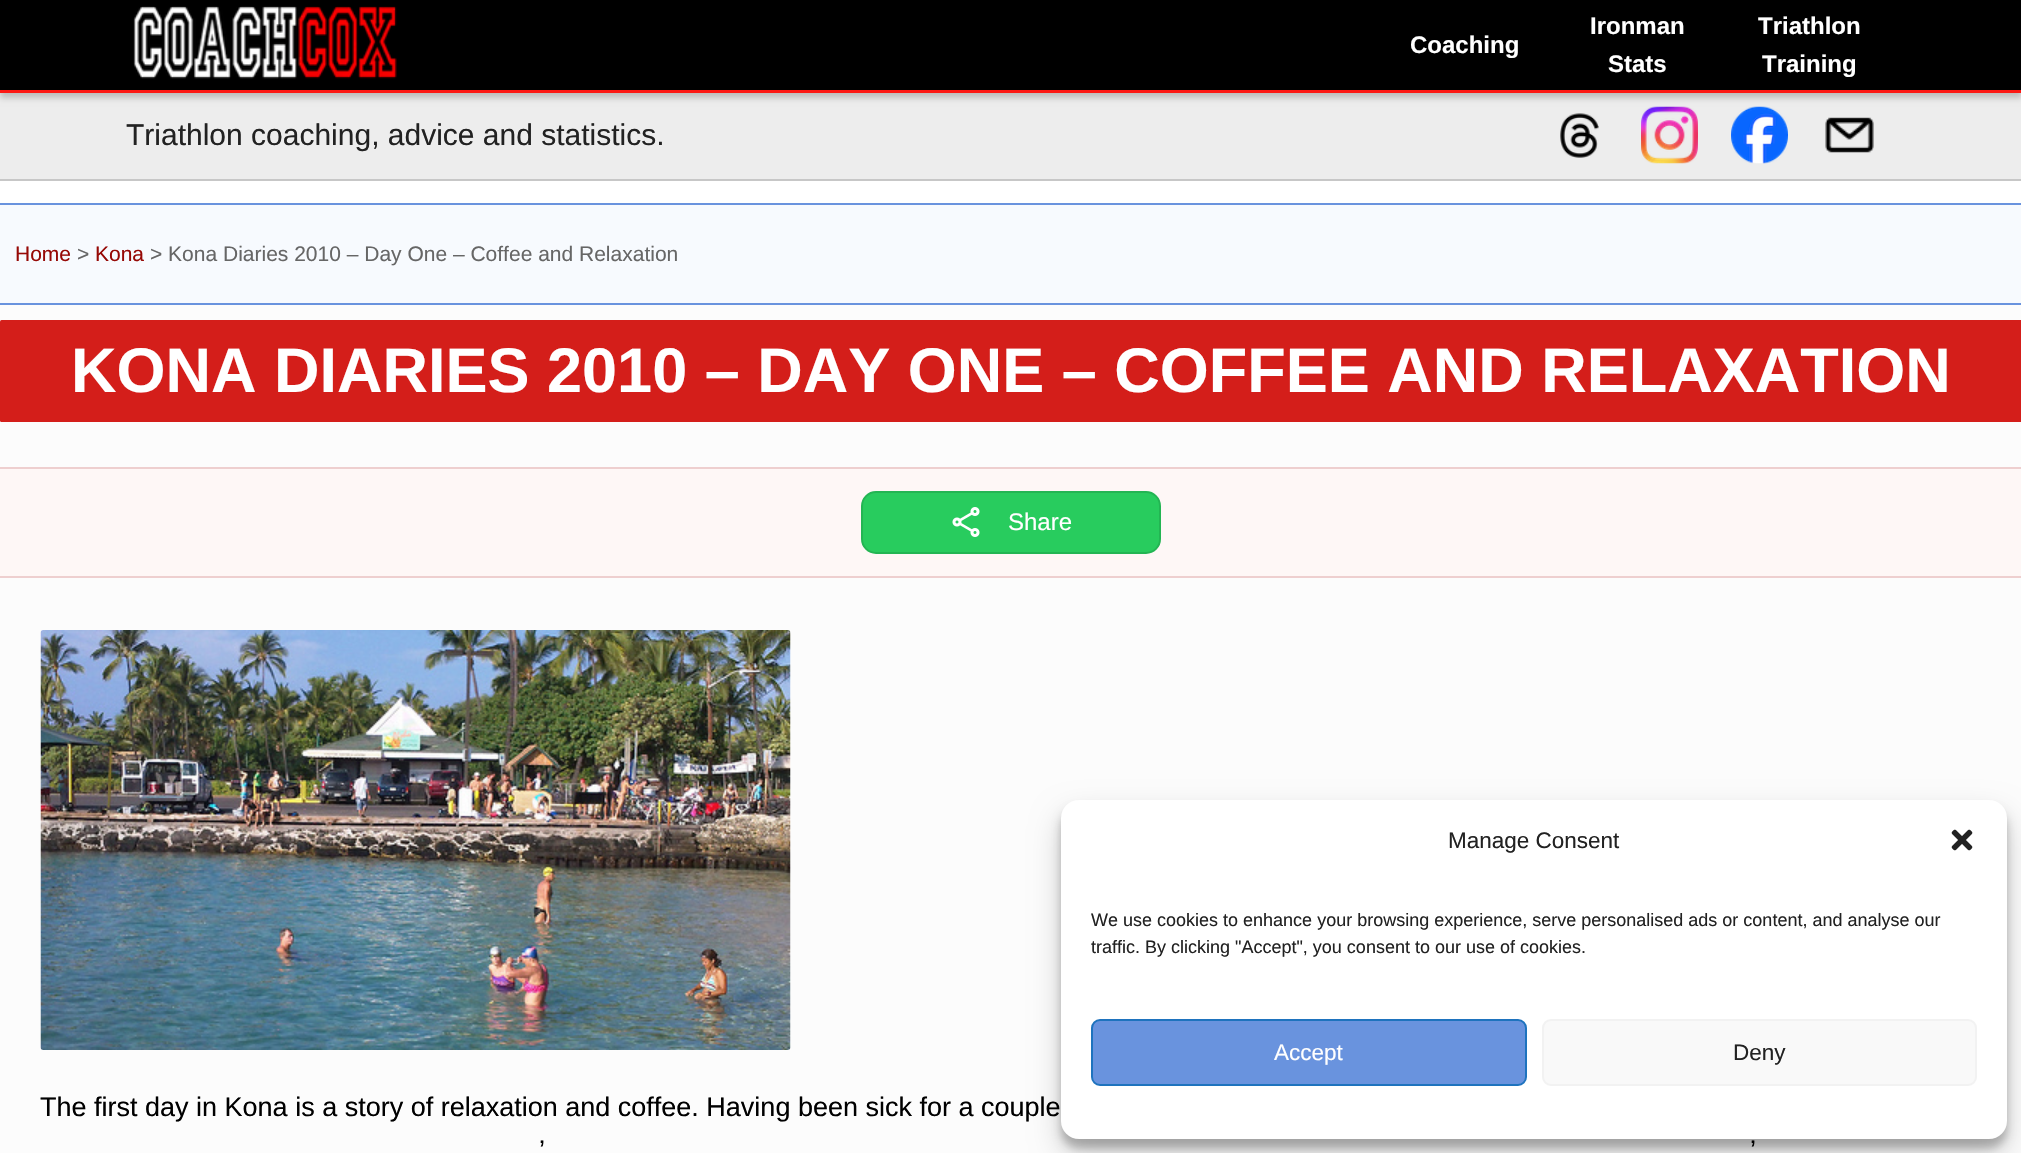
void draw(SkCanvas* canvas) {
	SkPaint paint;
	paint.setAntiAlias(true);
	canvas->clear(0xffffffff);
	paint.setColor(0xffededed);
	canvas->drawRect(SkRect::MakeXYWH(0, 93, 2021, 86), paint);
	canvas->drawImageRect(SkImages::DeferredFromEncodedData(SkData::MakeFromFileName("img3.png")), SkRect::MakeXYWH(1641, 106, 57, 58), SkSamplingOptions());
	canvas->drawImageRect(SkImages::DeferredFromEncodedData(SkData::MakeFromFileName("img4.png")), SkRect::MakeXYWH(1731, 106, 57, 58), SkSamplingOptions());
	paint.setColor(0x33000000);
	paint.setMaskFilter(SkMaskFilter::MakeBlur(kNormal_SkBlurStyle, 3));
	canvas->drawRect(SkRect::MakeXYWH(0, 5, 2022, 93), paint);
	paint.setMaskFilter(nullptr);
	paint.setColor(0xff000000);
	canvas->drawRect(SkRect::MakeXYWH(0, 0, 2021, 90), paint);
	paint.setColor(0xfffc1814);
	canvas->drawRect(SkRect::MakeXYWH(0, 90, 2021, 3), paint);
	canvas->drawImageRect(SkImages::DeferredFromEncodedData(SkData::MakeFromFileName("img1.png")), SkRect::MakeXYWH(133, 6, 264, 73), SkSamplingOptions());
	SkFont f1(fontMgr->matchFamilyStyle("Liberation Sans", SkFontStyle::Bold()), 24);
	f1.setSubpixel(true);
	paint.setColor(0xffffffff);
	canvas->drawString("Coaching", 1410, 53, f1, paint);
	canvas->drawString("Ironman", 1590, 34, f1, paint);
	canvas->drawString("Stats", 1608, 72, f1, paint);
	canvas->drawString("Triathlon", 1758, 34, f1, paint);
	canvas->drawString("Training", 1762, 72, f1, paint);
	paint.setColor(0xffc7c7c7);
	canvas->drawRect(SkRect::MakeXYWH(0, 179, 2021, 2), paint);
	SkFont f2(fontMgr->matchFamilyStyle("Liberation Sans", SkFontStyle::Normal()), 30);
	f2.setSubpixel(true);
	paint.setColor(0xff222222);
	canvas->drawString("Triathlon coaching, advice and statistics.", 126, 145, f2, paint);
	canvas->drawImageRect(SkImages::DeferredFromEncodedData(SkData::MakeFromFileName("img2.png")), SkRect::MakeXYWH(1560, 113, 39, 45), SkSamplingOptions());
	canvas->drawImageRect(SkImages::DeferredFromEncodedData(SkData::MakeFromFileName("img5.png")), SkRect::MakeXYWH(1825, 117, 49, 36), SkSamplingOptions());
	paint.setColor(0xfffcfcfc);
	canvas->drawRect(SkRect::MakeXYWH(0, 305, 2021, 848), paint);
	paint.setColor(0xfff7fafe);
	canvas->drawRect(SkRect::MakeXYWH(0, 205, 2021, 98), paint);
	paint.setColor(0xff6993de);
	canvas->drawRect(SkRect::MakeXYWH(0, 203, 2021, 2), paint);
	canvas->drawRect(SkRect::MakeXYWH(0, 303, 2021, 2), paint);
	SkFont f3(fontMgr->matchFamilyStyle("Liberation Sans", SkFontStyle::Normal()), 21);
	f3.setSubpixel(true);
	paint.setColor(0xff960906);
	canvas->drawString("Home", 15, 261, f3, paint);
	paint.setColor(0xff666666);
	canvas->drawString(">", 77, 261, f3, paint);
	paint.setColor(0xff960906);
	canvas->drawString("Kona", 95, 261, f3, paint);
	paint.setColor(0xff666666);
	canvas->drawString("> Kona Diaries 2010 – Day One – Coffee and Relaxation", 150, 261, f3, paint);
	paint.setColor(0xffd41e1a);
	canvas->drawRoundRect(SkRect::MakeXYWH(0, 320, 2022, 102), 1.5, 1.5, paint);
	SkFont f4(fontMgr->matchFamilyStyle("Liberation Sans", SkFontStyle::Bold()), 63);
	f4.setSubpixel(true);
	paint.setColor(0xffffffff);
	canvas->drawString("KONA DIARIES 2010 – DAY ONE – COFFEE AND RELAXATION", 71, 392, f4, paint);
	paint.setColor(0xfffef7f6);
	canvas->drawRect(SkRect::MakeXYWH(0, 469, 2021, 107), paint);
	paint.setColor(0xffeecfcf);
	canvas->drawRect(SkRect::MakeXYWH(0, 467, 2021, 2), paint);
	canvas->drawRect(SkRect::MakeXYWH(0, 576, 2021, 2), paint);
	paint.setColor(0xff28cc5e);
	canvas->drawRoundRect(SkRect::MakeXYWH(862, 492, 298, 61), 14, 14, paint);
	paint.setStroke(true);
	paint.setStrokeWidth(2);
	paint.setColor(0xff23b553);
	canvas->drawRoundRect(SkRect::MakeXYWH(862, 492, 298, 61), 14, 14, paint);
	canvas->drawImageRect(SkImages::DeferredFromEncodedData(SkData::MakeFromFileName("img6.png")), SkRect::MakeXYWH(952, 507, 28, 30), SkSamplingOptions());
	SkFont f5(fontMgr->matchFamilyStyle("Liberation Sans", SkFontStyle::Normal()), 24);
	f5.setSubpixel(true);
	paint.setStroke(false);
	paint.setColor(0xffffffff);
	canvas->drawString("Share", 1008, 530, f5, paint);
	canvas->drawImageRect(SkImages::DeferredFromEncodedData(SkData::MakeFromFileName("img7.png")), SkRect::MakeXYWH(40, 630, 751, 420), SkSamplingOptions());
	SkFont f6(fontMgr->matchFamilyStyle("Liberation Sans", SkFontStyle::Normal()), 27);
	f6.setSubpixel(true);
	paint.setColor(0xff000000);
	canvas->drawString("The first day in Kona is a story of relaxation and coffee. Having been sick for a couple", 40, 1116, f6, paint);
	canvas->drawString("’", 539, 1159, f6, paint);
	canvas->drawString("’", 1750, 1159, f6, paint);
	paint.setColor(0x3b000000);
	paint.setMaskFilter(SkMaskFilter::MakeBlur(kNormal_SkBlurStyle, 4.5));
	canvas->drawRoundRect(SkRect::MakeXYWH(1061, 809, 946, 339), 18, 18, paint);
	paint.setMaskFilter(nullptr);
	paint.setColor(0x30000000);
	paint.setMaskFilter(SkMaskFilter::MakeBlur(kNormal_SkBlurStyle, 15));
	canvas->drawRoundRect(SkRect::MakeXYWH(1061, 815, 946, 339), 18, 18, paint);
	paint.setMaskFilter(nullptr);
	paint.setColor(0xffffffff);
	canvas->drawRoundRect(SkRect::MakeXYWH(1061, 800, 946, 339), 18, 18, paint);
	SkFont f7(fontMgr->matchFamilyStyle("Liberation Sans", SkFontStyle::Normal()), 22.5);
	f7.setSubpixel(true);
	paint.setColor(0xff222222);
	canvas->drawString("Manage Consent", 1448, 848, f7, paint);
	canvas->drawImageRect(SkImages::DeferredFromEncodedData(SkData::MakeFromFileName("img8.png")), SkRect::MakeXYWH(1951, 829, 22, 22), SkSamplingOptions());
	SkFont f8(fontMgr->matchFamilyStyle("Liberation Sans", SkFontStyle::Normal()), 18);
	f8.setSubpixel(true);
	canvas->drawString("We use cookies to enhance your browsing experience, serve personalised ads or content, and analyse our", 1091, 926, f8, paint);
	canvas->drawString("traffic. By clicking \"Accept\", you consent to our use of cookies.", 1091, 953, f8, paint);
	paint.setColor(0xff6993de);
	canvas->drawRoundRect(SkRect::MakeXYWH(1092, 1020, 434, 65), 8, 8, paint);
	paint.setStroke(true);
	paint.setColor(0xff1e73be);
	canvas->drawRoundRect(SkRect::MakeXYWH(1092, 1020, 434, 65), 8, 8, paint);
	paint.setStroke(false);
	paint.setColor(0xffffffff);
	canvas->drawString("Accept", 1274, 1060, f7, paint);
	paint.setColor(0xfff9f9f9);
	canvas->drawRoundRect(SkRect::MakeXYWH(1543, 1020, 433, 65), 8, 8, paint);
	paint.setStroke(true);
	paint.setColor(0xfff2f2f2);
	canvas->drawRoundRect(SkRect::MakeXYWH(1543, 1020, 433, 65), 8, 8, paint);
	paint.setStroke(false);
	paint.setColor(0xff222222);
	canvas->drawString("Deny", 1733, 1060, f7, paint);
}
